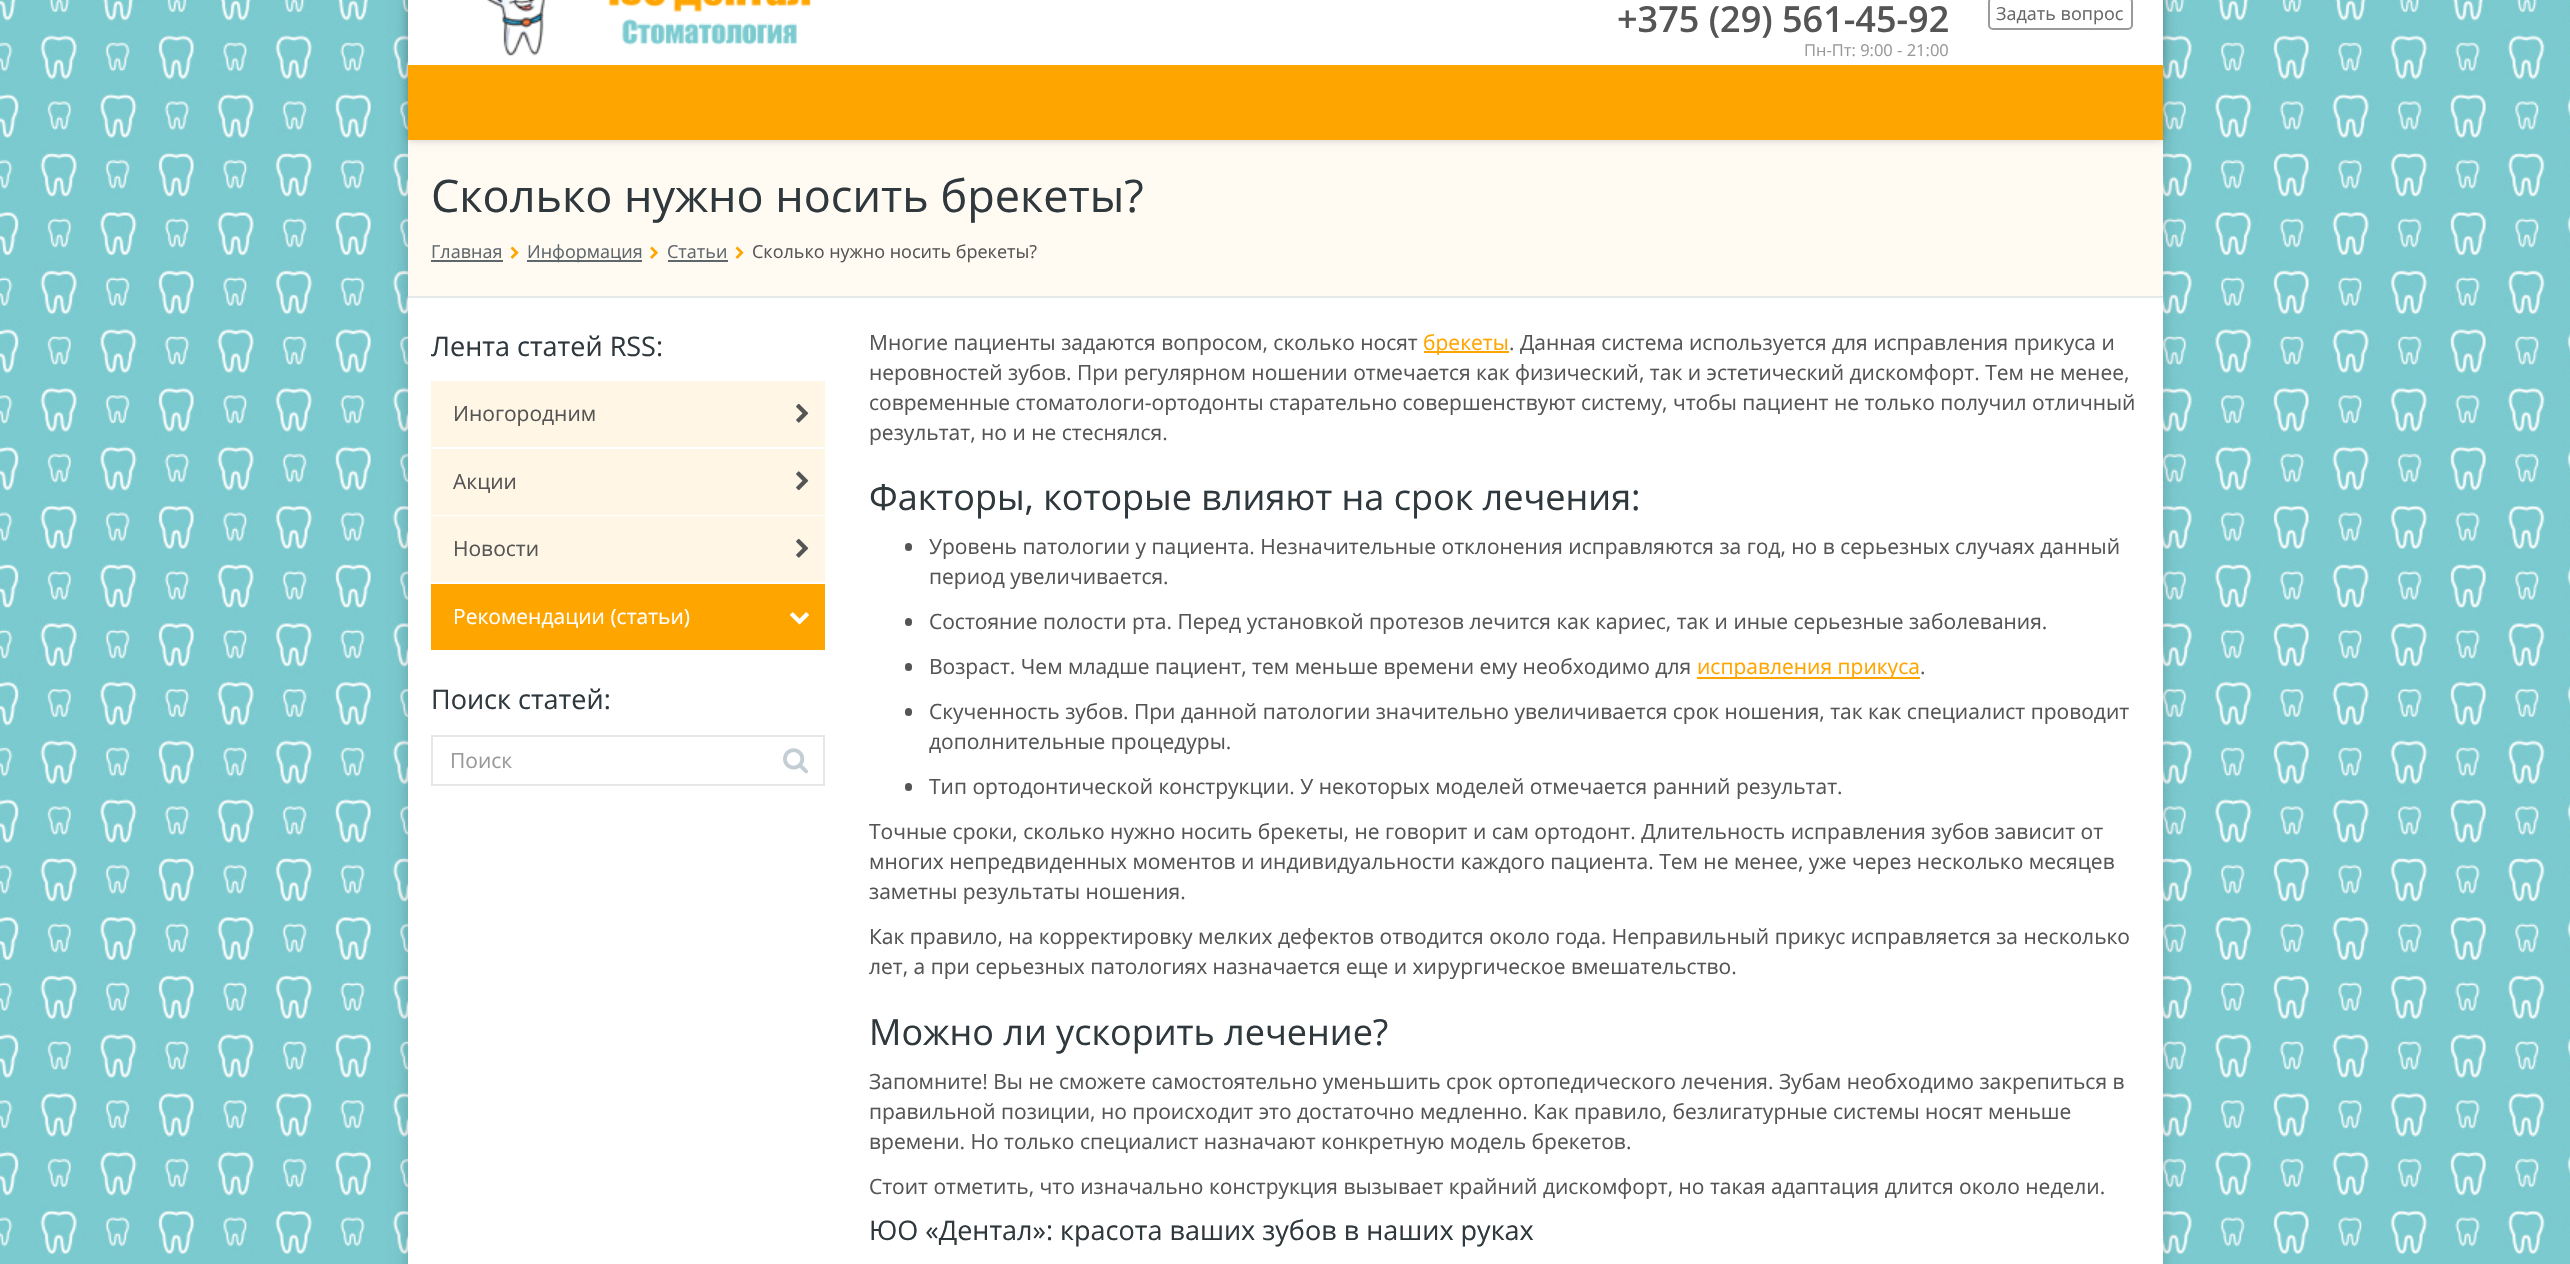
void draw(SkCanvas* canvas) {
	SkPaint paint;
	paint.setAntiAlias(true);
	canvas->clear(0xffffffff);
	canvas->drawImageRect(SkImages::DeferredFromEncodedData(SkData::MakeFromFileName("img1.png")), SkRect::MakeXYWH(0, 0, 2570, 1264), SkSamplingOptions());
	paint.setColor(0x33000000);
	paint.setMaskFilter(SkMaskFilter::MakeBlur(kNormal_SkBlurStyle, 7.5));
	canvas->drawRect(SkRect::MakeXYWH(408, -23, 1755, 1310), paint);
	paint.setMaskFilter(nullptr);
	paint.setColor(0xffffffff);
	canvas->drawRect(SkRect::MakeXYWH(408, 298, 1755, 966), paint);
	paint.setColor(0xfffffbf3);
	canvas->drawRect(SkRect::MakeXYWH(408, 140, 1755, 156), paint);
	paint.setColor(0x33000000);
	paint.setMaskFilter(SkMaskFilter::MakeBlur(kNormal_SkBlurStyle, 4));
	canvas->drawRect(SkRect::MakeXYWH(408, -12, 1755, 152), paint);
	paint.setMaskFilter(nullptr);
	paint.setColor(0xffffffff);
	canvas->drawRect(SkRect::MakeXYWH(408, 0, 1755, 65), paint);
	canvas->drawImageRect(SkImages::DeferredFromEncodedData(SkData::MakeFromFileName("img2.png")), SkRect::MakeXYWH(487, 0, 324, 56), SkSamplingOptions());
	SkFont f1(fontMgr->matchFamilyStyle("Open Sans", SkFontStyle(600, SkFontStyle::kNormal_Width, SkFontStyle::kUpright_Slant)), 36);
	f1.setSubpixel(true);
	paint.setColor(0xff555555);
	canvas->drawString("+375 (29) 561-45-92", 1617, 32, f1, paint);
	SkFont f2(fontMgr->matchFamilyStyle("Open Sans", SkFontStyle::Normal()), 16.5);
	f2.setSubpixel(true);
	paint.setColor(0xff999999);
	canvas->drawString("Пн-Пт: 9:00 - 21:00", 1804, 56, f2, paint);
	paint.setStroke(true);
	paint.setStrokeWidth(2);
	paint.setColor(0xff9a9a9a);
	canvas->drawRoundRect(SkRect::MakeXYWH(1989, -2, 143, 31), 4, 4, paint);
	SkFont f3(fontMgr->matchFamilyStyle("Open Sans", SkFontStyle::Normal()), 18);
	f3.setSubpixel(true);
	paint.setStroke(false);
	paint.setColor(0xff676767);
	canvas->drawString("Задать вопрос", 1996, 20, f3, paint);
	paint.setColor(0xffffa500);
	canvas->drawRect(SkRect::MakeXYWH(408, 65, 1755, 75), paint);
	paint.setColor(0xffe6e9ea);
	canvas->drawRect(SkRect::MakeXYWH(408, 296, 1755, 2), paint);
	SkFont f4(fontMgr->matchFamilyStyle("Open Sans", SkFontStyle::Normal()), 45);
	f4.setSubpixel(true);
	paint.setColor(0xff2f383d);
	canvas->drawString("Сколько нужно носить брекеты?", 431, 212, f4, paint);
	paint.setColor(0xff5e676c);
	canvas->drawString("Главная", 431, 258, f3, paint);
	canvas->drawRect(SkRect::MakeXYWH(431, 260, 72, 2), paint);
	canvas->drawImageRect(SkImages::DeferredFromEncodedData(SkData::MakeFromFileName("img3.png")), SkRect::MakeXYWH(510, 246, 9, 13), SkSamplingOptions());
	canvas->drawRect(SkRect::MakeXYWH(527, 260, 115, 2), paint);
	canvas->drawString("Информация", 527, 258, f3, paint);
	canvas->drawImageRect(SkImages::DeferredFromEncodedData(SkData::MakeFromFileName("img4.png")), SkRect::MakeXYWH(650, 246, 8, 13), SkSamplingOptions());
	canvas->drawString("Статьи", 667, 258, f3, paint);
	canvas->drawRect(SkRect::MakeXYWH(668, 260, 60, 2), paint);
	canvas->drawImageRect(SkImages::DeferredFromEncodedData(SkData::MakeFromFileName("img3.png")), SkRect::MakeXYWH(735, 246, 9, 13), SkSamplingOptions());
	paint.setColor(0xff555555);
	canvas->drawString("Сколько нужно носить брекеты?", 752, 258, f3, paint);
	SkFont f5(fontMgr->matchFamilyStyle("Open Sans", SkFontStyle::Normal()), 27);
	f5.setSubpixel(true);
	paint.setColor(0xff2f383d);
	canvas->drawString("Лента статей RSS:", 431, 356, f5, paint);
	paint.setColor(0xfffff6e6);
	canvas->drawRect(SkRect::MakeXYWH(431, 381, 394, 66), paint);
	SkFont f6(fontMgr->matchFamilyStyle("Open Sans", SkFontStyle::Normal()), 21);
	f6.setSubpixel(true);
	paint.setColor(0xff555555);
	canvas->drawString("Иногородним", 453, 421, f6, paint);
	canvas->drawImageRect(SkImages::DeferredFromEncodedData(SkData::MakeFromFileName("img5.png")), SkRect::MakeXYWH(796, 403, 13, 20), SkSamplingOptions());
	paint.setColor(0xfffff6e6);
	canvas->drawRect(SkRect::MakeXYWH(431, 449, 394, 66), paint);
	paint.setColor(0xff555555);
	canvas->drawString("Акции", 453, 489, f6, paint);
	canvas->drawImageRect(SkImages::DeferredFromEncodedData(SkData::MakeFromFileName("img6.png")), SkRect::MakeXYWH(796, 471, 13, 20), SkSamplingOptions());
	paint.setColor(0xfffff6e6);
	canvas->drawRect(SkRect::MakeXYWH(431, 516, 394, 66), paint);
	paint.setColor(0xff555555);
	canvas->drawString("Новости", 453, 556, f6, paint);
	canvas->drawImageRect(SkImages::DeferredFromEncodedData(SkData::MakeFromFileName("img5.png")), SkRect::MakeXYWH(796, 538, 13, 20), SkSamplingOptions());
	paint.setColor(0xffffa500);
	canvas->drawRect(SkRect::MakeXYWH(431, 584, 394, 66), paint);
	paint.setColor(0xffffffff);
	canvas->drawString("Рекомендации (статьи)", 453, 624, f6, paint);
	canvas->drawImageRect(SkImages::DeferredFromEncodedData(SkData::MakeFromFileName("img7.png")), SkRect::MakeXYWH(790, 612, 19, 13), SkSamplingOptions());
	paint.setColor(0xff2f383d);
	canvas->drawString("Поиск статей:", 431, 709, f5, paint);
	paint.setStroke(true);
	paint.setColor(0xffe5e7e8);
	canvas->drawRect(SkRect::MakeXYWH(432, 736, 392, 49), paint);
	paint.setStroke(false);
	paint.setColor(0xff999999);
	canvas->drawString("Поиск", 450, 768, f6, paint);
	canvas->drawImageRect(SkImages::DeferredFromEncodedData(SkData::MakeFromFileName("img8.png")), SkRect::MakeXYWH(783, 748, 25, 26), SkSamplingOptions());
	paint.setColor(0xff555555);
	canvas->drawString("Многие пациенты задаются вопросом, сколько носят", 869, 350, f6, paint);
	paint.setColor(0xffffa500);
	canvas->drawRect(SkRect::MakeXYWH(1424, 351, 85, 2), paint);
	canvas->drawString("брекеты", 1423, 350, f6, paint);
	paint.setColor(0xff555555);
	canvas->drawString(". Данная система используется для исправления прикуса и", 1509, 350, f6, paint);
	canvas->drawString("неровностей зубов. При регулярном ношении отмечается как физический, так и эстетический дискомфорт. Тем не менее,", 869, 380, f6, paint);
	canvas->drawString("современные стоматологи-ортодонты старательно совершенствуют систему, чтобы пациент не только получил отличный", 869, 410, f6, paint);
	canvas->drawString("результат, но и не стеснялся.", 869, 440, f6, paint);
	SkFont f7(fontMgr->matchFamilyStyle("Open Sans", SkFontStyle::Normal()), 36);
	f7.setSubpixel(true);
	paint.setColor(0xff2f383d);
	canvas->drawString("Факторы, которые влияют на срок лечения:", 869, 510, f7, paint);
	paint.setColor(0xff555555);
	canvas->drawRoundRect(SkRect::MakeXYWH(905, 543, 7, 8), 3.5, 3.5, paint);
	canvas->drawString("Уровень патологии у пациента. Незначительные отклонения исправляются за год, но в серьезных случаях данный", 929, 554, f6, paint);
	canvas->drawString("период увеличивается.", 929, 584, f6, paint);
	canvas->drawRoundRect(SkRect::MakeXYWH(905, 618, 7, 8), 3.5, 3.5, paint);
	canvas->drawString("Состояние полости рта. Перед установкой протезов лечится как кариес, так и иные серьезные заболевания.", 929, 629, f6, paint);
	canvas->drawRoundRect(SkRect::MakeXYWH(905, 663, 7, 8), 3.5, 3.5, paint);
	canvas->drawString("Возраст. Чем младше пациент, тем меньше времени ему необходимо для", 929, 674, f6, paint);
	paint.setColor(0xffffa500);
	canvas->drawRect(SkRect::MakeXYWH(1697, 677, 223, 2), paint);
	canvas->drawString("исправления прикуса", 1697, 674, f6, paint);
	paint.setColor(0xff555555);
	canvas->drawString(".", 1920, 674, f6, paint);
	canvas->drawRoundRect(SkRect::MakeXYWH(905, 708, 7, 8), 3.5, 3.5, paint);
	canvas->drawString("Скученность зубов. При данной патологии значительно увеличивается срок ношения, так как специалист проводит", 929, 719, f6, paint);
	canvas->drawString("дополнительные процедуры.", 929, 749, f6, paint);
	canvas->drawRoundRect(SkRect::MakeXYWH(905, 783, 7, 8), 3.5, 3.5, paint);
	canvas->drawString("Тип ортодонтической конструкции. У некоторых моделей отмечается ранний результат.", 929, 794, f6, paint);
	canvas->drawString("Точные сроки, сколько нужно носить брекеты, не говорит и сам ортодонт. Длительность исправления зубов зависит от", 869, 839, f6, paint);
	canvas->drawString("многих непредвиденных моментов и индивидуальности каждого пациента. Тем не менее, уже через несколько месяцев", 869, 869, f6, paint);
	canvas->drawString("заметны результаты ношения.", 869, 899, f6, paint);
	canvas->drawString("Как правило, на корректировку мелких дефектов отводится около года. Неправильный прикус исправляется за несколько", 869, 944, f6, paint);
	canvas->drawString("лет, а при серьезных патологиях назначается еще и хирургическое вмешательство.", 869, 974, f6, paint);
	paint.setColor(0xff2f383d);
	canvas->drawString("Можно ли ускорить лечение?", 869, 1045, f7, paint);
	paint.setColor(0xff555555);
	canvas->drawString("Запомните! Вы не сможете самостоятельно уменьшить срок ортопедического лечения. Зубам необходимо закрепиться в", 869, 1089, f6, paint);
	canvas->drawString("правильной позиции, но происходит это достаточно медленно. Как правило, безлигатурные системы носят меньше", 869, 1119, f6, paint);
	canvas->drawString("времени. Но только специалист назначают конкретную модель брекетов.", 869, 1149, f6, paint);
	canvas->drawString("Стоит отметить, что изначально конструкция вызывает крайний дискомфорт, но такая адаптация длится около недели.", 869, 1194, f6, paint);
	paint.setColor(0xff2f383d);
	canvas->drawString("ЮО «Дентал»: красота ваших зубов в наших руках", 869, 1240, f5, paint);
}
